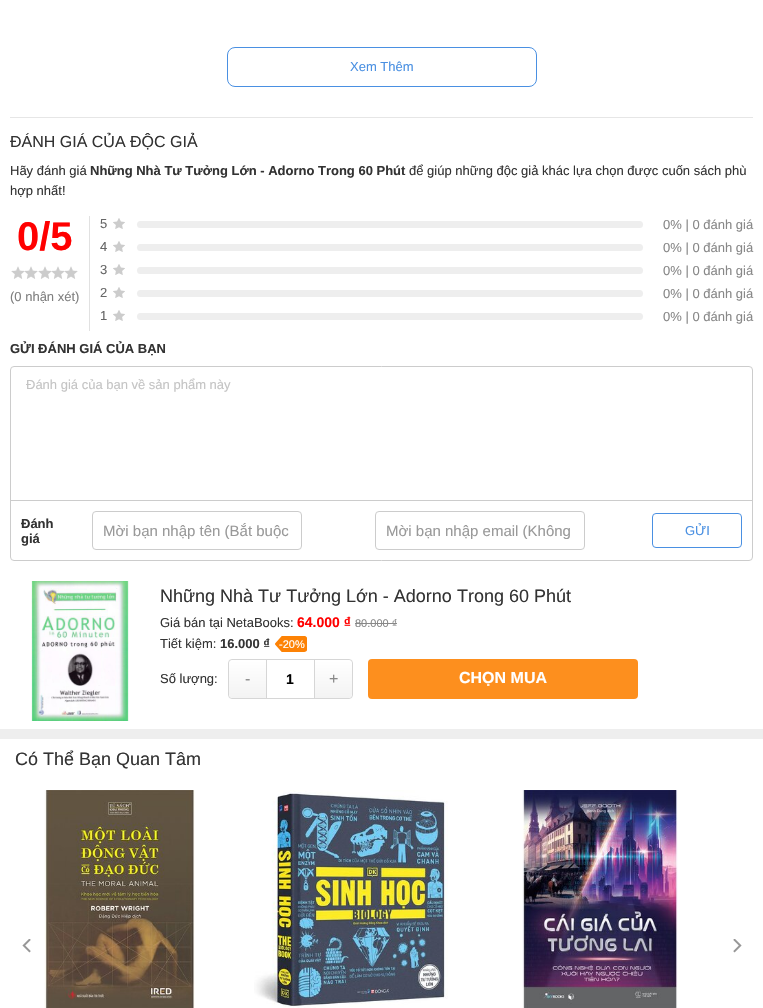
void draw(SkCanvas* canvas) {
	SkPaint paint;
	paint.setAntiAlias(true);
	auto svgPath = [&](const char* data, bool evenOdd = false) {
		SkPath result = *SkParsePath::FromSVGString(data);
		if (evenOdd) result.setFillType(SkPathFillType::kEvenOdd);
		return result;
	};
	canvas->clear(0xffeeeeee);
	paint.setColor(0xffffffff);
	canvas->drawRect(SkRect::MakeXYWH(0, 0, 763, 729), paint);
	paint.setStroke(true);
	paint.setStrokeWidth(1);
	paint.setColor(0xff4a90e2);
	canvas->drawRoundRect(SkRect::MakeXYWH(227.5, 47.5, 309, 39), 7.5, 7.5, paint);
	SkFont f1(fontMgr->matchFamilyStyle("Liberation Sans", SkFontStyle::Normal()), 13);
	f1.setSubpixel(true);
	paint.setStroke(false);
	canvas->drawString("Xem Thêm", 350, 71, f1, paint);
	paint.setColor(0xffe6e6e6);
	canvas->drawRect(SkRect::MakeXYWH(10, 117, 743, 1), paint);
	SkFont f2(fontMgr->matchFamilyStyle("Liberation Sans", SkFontStyle::Normal()), 16);
	f2.setSubpixel(true);
	paint.setColor(0xff333333);
	canvas->drawString("ĐÁNH GIÁ CỦA ĐỘC GIẢ", 10, 147, f2, paint);
	canvas->drawString("Hãy đánh giá", 10, 175, f1, paint);
	SkFont f3(fontMgr->matchFamilyStyle("Liberation Sans", SkFontStyle::Bold()), 13);
	f3.setSubpixel(true);
	canvas->drawString("Những Nhà Tư Tưởng Lớn - Adorno Trong 60 Phút", 90, 175, f3, paint);
	canvas->drawString("để giúp những độc giả khác lựa chọn được cuốn sách phù", 409, 175, f1, paint);
	canvas->drawString("hợp nhất!", 10, 195, f1, paint);
	paint.setColor(0xffe1e1e1);
	canvas->drawRect(SkRect::MakeXYWH(89, 216, 1, 115), paint);
	SkFont f4(fontMgr->matchFamilyStyle("Liberation Sans", SkFontStyle::Bold()), 40);
	f4.setSubpixel(true);
	paint.setColor(0xffff0000);
	canvas->drawString("0/5", 17, 250, f4, paint);
	canvas->drawImageRect(SkImages::DeferredFromEncodedData(SkData::MakeFromFileName("img1.png")), SkRect::MakeXYWH(11, 266, 67, 13), SkSamplingOptions());
	paint.setColor(0xff808080);
	canvas->drawString("(0 nhận xét)", 10, 301, f1, paint);
	paint.setColor(0xff666666);
	canvas->drawString("5", 100, 228, f1, paint);
	canvas->drawImageRect(SkImages::DeferredFromEncodedData(SkData::MakeFromFileName("img2.png")), SkRect::MakeXYWH(113, 218, 12, 11), SkSamplingOptions());
	paint.setColor(0xffeeeeee);
	canvas->drawRoundRect(SkRect::MakeXYWH(137, 221, 506, 7), 3.5, 3.5, paint);
	paint.setColor(0xff888888);
	canvas->drawString("0% | 0 đánh giá", 663, 229, f1, paint);
	paint.setColor(0xff666666);
	canvas->drawString("4", 100, 251, f1, paint);
	canvas->drawImageRect(SkImages::DeferredFromEncodedData(SkData::MakeFromFileName("img2.png")), SkRect::MakeXYWH(113, 241, 12, 11), SkSamplingOptions());
	paint.setColor(0xffeeeeee);
	canvas->drawRoundRect(SkRect::MakeXYWH(137, 244, 506, 7), 3.5, 3.5, paint);
	paint.setColor(0xff888888);
	canvas->drawString("0% | 0 đánh giá", 663, 252, f1, paint);
	paint.setColor(0xff666666);
	canvas->drawString("3", 100, 274, f1, paint);
	canvas->drawImageRect(SkImages::DeferredFromEncodedData(SkData::MakeFromFileName("img2.png")), SkRect::MakeXYWH(113, 264, 12, 11), SkSamplingOptions());
	paint.setColor(0xffeeeeee);
	canvas->drawRoundRect(SkRect::MakeXYWH(137, 267, 506, 7), 3.5, 3.5, paint);
	paint.setColor(0xff888888);
	canvas->drawString("0% | 0 đánh giá", 663, 275, f1, paint);
	paint.setColor(0xff666666);
	canvas->drawString("2", 100, 297, f1, paint);
	canvas->drawImageRect(SkImages::DeferredFromEncodedData(SkData::MakeFromFileName("img2.png")), SkRect::MakeXYWH(113, 287, 12, 11), SkSamplingOptions());
	paint.setColor(0xffeeeeee);
	canvas->drawRoundRect(SkRect::MakeXYWH(137, 290, 506, 7), 3.5, 3.5, paint);
	paint.setColor(0xff888888);
	canvas->drawString("0% | 0 đánh giá", 663, 298, f1, paint);
	paint.setColor(0xff666666);
	canvas->drawString("1", 100, 320, f1, paint);
	canvas->drawImageRect(SkImages::DeferredFromEncodedData(SkData::MakeFromFileName("img2.png")), SkRect::MakeXYWH(113, 310, 12, 11), SkSamplingOptions());
	paint.setColor(0xffeeeeee);
	canvas->drawRoundRect(SkRect::MakeXYWH(137, 313, 506, 7), 3.5, 3.5, paint);
	paint.setColor(0xff888888);
	canvas->drawString("0% | 0 đánh giá", 663, 321, f1, paint);
	paint.setColor(0xff333333);
	canvas->drawString("GỬI ĐÁNH GIÁ CỦA BẠN", 10, 353, f3, paint);
	paint.setStroke(true);
	paint.setColor(0xffcccccc);
	canvas->drawRoundRect(SkRect::MakeXYWH(10.5, 366.5, 742, 194), 3.5, 3.5, paint);
	paint.setStroke(false);
	paint.setColor(0xffc4c4c4);
	canvas->drawString("Đánh giá của bạn về sản phẩm này", 26, 389, f1, paint);
	paint.setColor(0xffcccccc);
	canvas->drawRect(SkRect::MakeXYWH(11, 500, 741, 1), paint);
	paint.setColor(0xff333333);
	canvas->drawString("Đánh", 21, 528, f3, paint);
	canvas->drawString("giá", 21, 543, f3, paint);
	paint.setStroke(true);
	paint.setColor(0xffcccccc);
	canvas->drawRoundRect(SkRect::MakeXYWH(92.5, 511.5, 209, 38), 3.5, 3.5, paint);
	canvas->save();
	canvas->clipRect(SkRect::MakeXYWH(103, 522, 188, 17));
	SkFont f5(fontMgr->matchFamilyStyle("Liberation Sans", SkFontStyle::Normal()), 15);
	f5.setSubpixel(true);
	paint.setStroke(false);
	paint.setColor(0xff999999);
	canvas->drawString("Mời bạn nhập tên (Bắt buộc", 103, 536, f5, paint);
	canvas->restore();
	paint.setStroke(true);
	paint.setColor(0xffcccccc);
	canvas->drawRoundRect(SkRect::MakeXYWH(375.5, 511.5, 209, 38), 3.5, 3.5, paint);
	canvas->save();
	canvas->clipRect(SkRect::MakeXYWH(386, 522, 188, 17));
	paint.setStroke(false);
	paint.setColor(0xff999999);
	canvas->drawString("Mời bạn nhập email (Không", 386, 536, f5, paint);
	canvas->restore();
	paint.setStroke(true);
	paint.setColor(0xff4a90e2);
	canvas->drawRoundRect(SkRect::MakeXYWH(652.5, 513.5, 89, 34), 3.5, 3.5, paint);
	paint.setStroke(false);
	canvas->drawString("GỬI", 685, 535, f1, paint);
	canvas->drawImageRect(SkImages::DeferredFromEncodedData(SkData::MakeFromFileName("img3.png")), SkRect::MakeXYWH(31, 581, 98, 140), SkSamplingOptions());
	SkFont f6(fontMgr->matchFamilyStyle("Liberation Sans", SkFontStyle::Normal()), 18);
	f6.setSubpixel(true);
	paint.setColor(0xff333333);
	canvas->drawString("Những Nhà Tư Tưởng Lớn - Adorno Trong 60 Phút", 160, 602, f6, paint);
	canvas->drawString("Giá bán tại NetaBooks:", 160, 627, f1, paint);
	SkFont f7(fontMgr->matchFamilyStyle("Liberation Sans", SkFontStyle::Bold()), 14);
	f7.setSubpixel(true);
	paint.setColor(0xffff0000);
	canvas->drawString("64.000 ₫", 297, 627, f7, paint);
	SkFont f8(fontMgr->matchFamilyStyle("Liberation Sans", SkFontStyle::Normal()), 11);
	f8.setSubpixel(true);
	paint.setColor(0xff888888);
	canvas->drawString("80.000 ₫", 355, 627, f8, paint);
	canvas->drawRect(SkRect::MakeXYWH(355, 623, 42, 1), paint);
	paint.setColor(0xff333333);
	canvas->drawString("Tiết kiệm:", 160, 648, f1, paint);
	canvas->drawString("16.000 ₫", 220, 648, f3, paint);
	canvas->drawImageRect(SkImages::DeferredFromEncodedData(SkData::MakeFromFileName("img4.png")), SkRect::MakeXYWH(275, 636, 32, 16), SkSamplingOptions());
	paint.setColor(0xffffffff);
	canvas->drawString("-20%", 279, 648, f8, paint);
	paint.setColor(0xff333333);
	canvas->drawString("Số lượng:", 160, 683, f1, paint);
	paint.setStroke(true);
	paint.setColor(0xffd6d6d6);
	canvas->drawRoundRect(SkRect::MakeXYWH(228.5, 659.5, 124, 39), 3.5, 3.5, paint);
	paint.setStroke(false);
	{
		const SkColor colors[] = {0xffffffff, 0xfff3f3f3};
		const float stops[] = {0, 1};
		const SkPoint ends[] = {{248, 660}, {248, 698}};
		paint.setShader(SkGradientShader::MakeLinear(ends, colors, stops, 2, SkTileMode::kClamp));
		paint.setAlpha(255);
	}
	canvas->drawPath(svgPath("M233 660H267V698H233C231 698 229 696 229 694V664C229 662 231 660 233 660Z"), paint);
	paint.setShader(nullptr);
	paint.setColor(0xffd6d6d6);
	canvas->drawRect(SkRect::MakeXYWH(266, 660, 1, 38), paint);
	paint.setColor(0xff888888);
	canvas->drawString("-", 245, 684, f2, paint);
	paint.setColor(0xff000000);
	canvas->drawString("1", 286, 684, f7, paint);
	{
		const SkColor colors[] = {0xffffffff, 0xfff3f3f3};
		const float stops[] = {0, 1};
		const SkPoint ends[] = {{334, 660}, {334, 698}};
		paint.setShader(SkGradientShader::MakeLinear(ends, colors, stops, 2, SkTileMode::kClamp));
		paint.setAlpha(255);
	}
	canvas->drawPath(svgPath("M314 660H348C350 660 352 662 352 664V694C352 696 350 698 348 698H314Z"), paint);
	paint.setShader(nullptr);
	paint.setColor(0xffd6d6d6);
	canvas->drawRect(SkRect::MakeXYWH(314, 660, 1, 38), paint);
	paint.setColor(0xff888888);
	canvas->drawString("+", 329, 684, f2, paint);
	paint.setColor(0xfffd8f1e);
	canvas->drawRoundRect(SkRect::MakeXYWH(368, 659, 270, 40), 4, 4, paint);
	SkFont f9(fontMgr->matchFamilyStyle("Liberation Sans", SkFontStyle::Bold()), 16);
	f9.setSubpixel(true);
	paint.setColor(0xffffffff);
	canvas->drawString("CHỌN MUA", 459, 683, f9, paint);
	canvas->drawRect(SkRect::MakeXYWH(0, 739, 763, 269), paint);
	paint.setColor(0xff333333);
	canvas->drawString("Có Thể Bạn Quan Tâm", 15, 765, f6, paint);
	canvas->drawImageRect(SkImages::DeferredFromEncodedData(SkData::MakeFromFileName("img6.png")), SkRect::MakeXYWH(44, 790, 151, 218), SkSamplingOptions());
	paint.setColor(0xbfffffff);
	canvas->drawCircle(27.5, 945.5, 17.5, paint);
	canvas->drawImageRect(SkImages::DeferredFromEncodedData(SkData::MakeFromFileName("img5.png")), SkRect::MakeXYWH(22, 939, 9, 14), SkSamplingOptions());
	canvas->drawImageRect(SkImages::DeferredFromEncodedData(SkData::MakeFromFileName("img7.png")), SkRect::MakeXYWH(254, 790, 194, 218), SkSamplingOptions());
	canvas->drawImageRect(SkImages::DeferredFromEncodedData(SkData::MakeFromFileName("img8.png")), SkRect::MakeXYWH(522, 790, 156, 218), SkSamplingOptions());
	canvas->drawImageRect(SkImages::DeferredFromEncodedData(SkData::MakeFromFileName("img9.png")), SkRect::MakeXYWH(733, 939, 9, 14), SkSamplingOptions());
}
